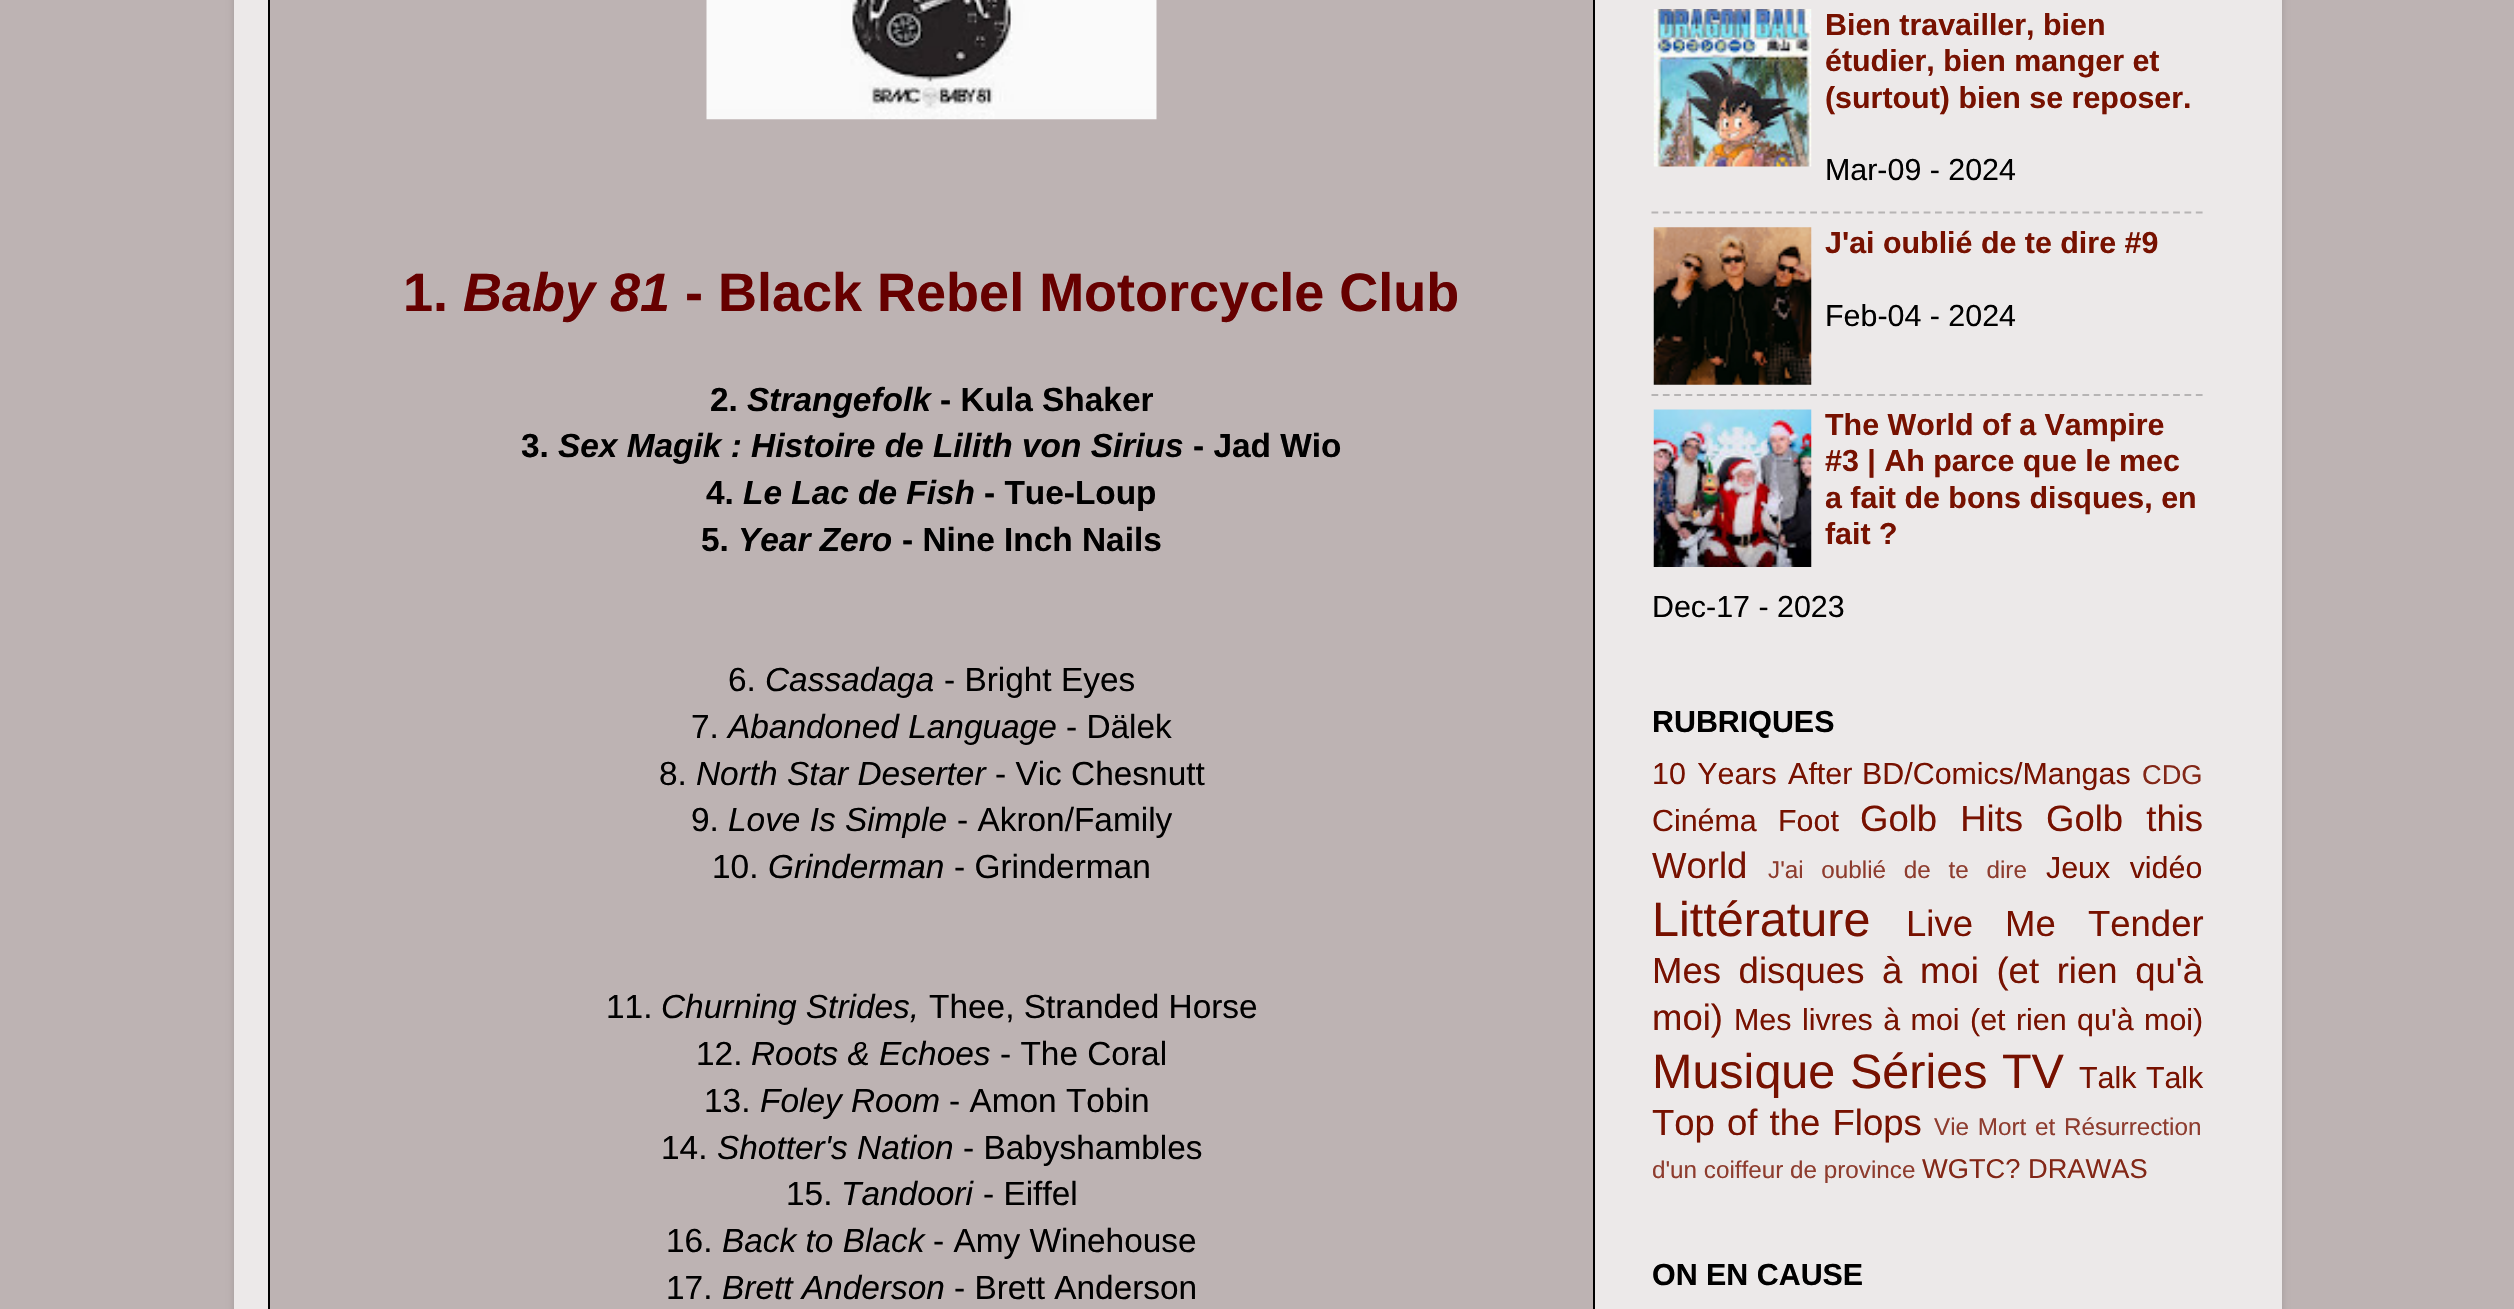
void draw(SkCanvas* canvas) {
	SkPaint paint;
	paint.setAntiAlias(true);
	auto spacedText = [&](const char* s, float x, float y, const SkFont& font, const SkPaint& ink, float letter, float word) {
		std::vector<SkGlyphID> glyphs(font.countText(s, strlen(s), SkTextEncoding::kUTF8));
		std::vector<float> xs(glyphs.size());
		font.textToGlyphs(s, strlen(s), SkTextEncoding::kUTF8, glyphs);
		font.getXPos(glyphs, xs, x);
		float extra = 0;
		for (size_t i = 0; i < glyphs.size(); i++) {
			xs[i] += extra;
			extra += letter + word * (glyphs[i] == font.unicharToGlyph(' '));
		}
		canvas->drawTextBlob(SkTextBlob::MakeFromPosHGlyphs(glyphs, xs, y, font), 0, 0, ink);
	};
	auto svgPath = [&](const char* data, bool evenOdd = false) {
		SkPath result = *SkParsePath::FromSVGString(data);
		if (evenOdd) result.setFillType(SkPathFillType::kEvenOdd);
		return result;
	};
	canvas->clear(0xffbdb3b3);
	canvas->save();
	canvas->clipPath(svgPath("M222 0H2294V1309H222ZM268-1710H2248C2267-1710 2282-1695 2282-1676V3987C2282 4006 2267 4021 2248 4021H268C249 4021 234 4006 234 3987V-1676C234-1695 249-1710 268-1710Z", true), true);
	paint.setColor(0x26000000);
	paint.setMaskFilter(SkMaskFilter::MakeBlur(kNormal_SkBlurStyle, 3.5));
	canvas->drawRoundRect(SkRect::MakeXYWH(234, -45, 2048, 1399), 34, 34, paint);
	paint.setMaskFilter(nullptr);
	canvas->restore();
	paint.setColor(0xb3ffffff);
	canvas->drawRect(SkRect::MakeXYWH(234, 0, 2048, 1309), paint);
	paint.setColor(0xffbdb3b3);
	canvas->drawRect(SkRect::MakeXYWH(269, -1, 1325, 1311), paint);
	paint.setStroke(true);
	paint.setStrokeWidth(2);
	paint.setColor(0xff000000);
	canvas->drawRect(SkRect::MakeXYWH(269, -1, 1325, 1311), paint);
	canvas->drawImageRect(SkImages::DeferredFromEncodedData(SkData::MakeFromFileName("img1.png")), SkRect::MakeXYWH(706, 0, 451, 120), SkSamplingOptions());
	SkFont f1(fontMgr->matchFamilyStyle("Liberation Sans", SkFontStyle::Bold()), 54);
	f1.setSubpixel(true);
	paint.setStroke(false);
	paint.setColor(0xff660000);
	canvas->drawString("1.", 403, 311, f1, paint);
	SkFont f2(fontMgr->matchFamilyStyle("Liberation Sans", SkFontStyle::BoldItalic()), 54);
	f2.setSubpixel(true);
	canvas->drawString("Baby 81", 463, 311, f2, paint);
	canvas->drawString("- Black Rebel Motorcycle Club", 685, 311, f1, paint);
	SkFont f3(fontMgr->matchFamilyStyle("Liberation Sans", SkFontStyle::Bold()), 33.4);
	f3.setSubpixel(true);
	paint.setColor(0xff000000);
	canvas->drawString("2.", 710, 411, f3, paint);
	SkFont f4(fontMgr->matchFamilyStyle("Liberation Sans", SkFontStyle::BoldItalic()), 33.4);
	f4.setSubpixel(true);
	canvas->drawString("Strangefolk", 747, 411, f4, paint);
	canvas->drawString("- Kula Shaker", 940, 411, f3, paint);
	canvas->drawString("3.", 521, 457, f3, paint);
	canvas->drawString("Sex Magik : Histoire de Lilith von Sirius", 558, 457, f4, paint);
	canvas->drawString("- Jad Wio", 1193, 457, f3, paint);
	canvas->drawString("4.", 706, 504, f3, paint);
	canvas->drawString("Le Lac de Fish", 743, 504, f4, paint);
	canvas->drawString("- Tue-Loup", 984, 504, f3, paint);
	canvas->drawString("5.", 701, 551, f3, paint);
	canvas->drawString("Year Zero", 738, 551, f4, paint);
	canvas->drawString("- Nine Inch Nails", 902, 551, f3, paint);
	SkFont f5(fontMgr->matchFamilyStyle("Liberation Sans", SkFontStyle::Normal()), 33.4);
	f5.setSubpixel(true);
	canvas->drawString("6.", 728, 691, f5, paint);
	SkFont f6(fontMgr->matchFamilyStyle("Liberation Sans", SkFontStyle::Italic()), 33.4);
	f6.setSubpixel(true);
	canvas->drawString("Cassadaga", 765, 691, f6, paint);
	canvas->drawString("- Bright Eyes", 944, 691, f5, paint);
	canvas->drawString("7.", 691, 738, f5, paint);
	canvas->drawString("Abandoned Language", 728, 738, f6, paint);
	canvas->drawString("- Dälek", 1066, 738, f5, paint);
	canvas->drawString("8.", 659, 785, f5, paint);
	canvas->drawString("North Star Deserter", 696, 785, f6, paint);
	canvas->drawString("- Vic Chesnutt", 995, 785, f5, paint);
	canvas->drawString("9.", 691, 831, f5, paint);
	canvas->drawString("Love Is Simple", 728, 831, f6, paint);
	canvas->drawString("- Akron/Family", 957, 831, f5, paint);
	canvas->drawString("10.", 712, 878, f5, paint);
	canvas->drawString("Grinderman", 768, 878, f6, paint);
	canvas->drawString("- Grinderman", 954, 878, f5, paint);
	canvas->drawString("11.", 606, 1018, f5, paint);
	canvas->drawString("Churning Strides,", 661, 1018, f6, paint);
	canvas->drawString("Thee, Stranded Horse", 929, 1018, f5, paint);
	canvas->drawString("12.", 696, 1065, f5, paint);
	canvas->drawString("Roots & Echoes", 751, 1065, f6, paint);
	canvas->drawString("- The Coral", 1000, 1065, f5, paint);
	canvas->drawString("13.", 704, 1112, f5, paint);
	canvas->drawString("Foley Room", 760, 1112, f6, paint);
	canvas->drawString("- Amon Tobin", 949, 1112, f5, paint);
	canvas->drawString("14.", 661, 1159, f5, paint);
	canvas->drawString("Shotter's Nation", 717, 1159, f6, paint);
	canvas->drawString("- Babyshambles", 963, 1159, f5, paint);
	canvas->drawString("15.", 786, 1205, f5, paint);
	canvas->drawString("Tandoori", 841, 1205, f6, paint);
	canvas->drawString("- Eiffel", 983, 1205, f5, paint);
	canvas->drawString("16.", 666, 1252, f5, paint);
	canvas->drawString("Back to Black", 722, 1252, f6, paint);
	canvas->drawString("- Amy Winehouse", 933, 1252, f5, paint);
	canvas->drawString("17.", 666, 1299, f5, paint);
	canvas->drawString("Brett Anderson", 722, 1299, f6, paint);
	canvas->drawString("- Brett Anderson", 954, 1299, f5, paint);
	canvas->drawImageRect(SkImages::DeferredFromEncodedData(SkData::MakeFromFileName("img2.png")), SkRect::MakeXYWH(1653, 9, 159, 158), SkSamplingOptions());
	SkFont f7(fontMgr->matchFamilyStyle("Liberation Sans", SkFontStyle::Bold()), 30.4);
	f7.setSubpixel(true);
	paint.setColor(0xff771100);
	canvas->drawString("Bien travailler, bien", 1825, 35, f7, paint);
	canvas->drawString("étudier, bien manger et", 1825, 71, f7, paint);
	canvas->drawString("(surtout) bien se reposer.", 1825, 108, f7, paint);
	SkFont f8(fontMgr->matchFamilyStyle("Liberation Sans", SkFontStyle::Normal()), 30.4);
	f8.setSubpixel(true);
	paint.setColor(0xff000000);
	canvas->drawString("Mar-09 - 2024", 1825, 180, f8, paint);
	paint.setStroke(true);
	paint.setStrokeWidth(2.2);
	paint.setColor(0xffb6b4b4);
	paint.setPathEffect(SkDashPathEffect::Make({{6.75f, 4.59f}}, 0));
	canvas->drawPath(svgPath("M1651.5 212.5H2203"), paint);
	paint.setPathEffect(nullptr);
	canvas->drawImageRect(SkImages::DeferredFromEncodedData(SkData::MakeFromFileName("img3.png")), SkRect::MakeXYWH(1653, 227, 159, 158), SkSamplingOptions());
	paint.setStroke(false);
	paint.setColor(0xff771100);
	canvas->drawString("J'ai oublié de te dire #9", 1825, 253, f7, paint);
	paint.setColor(0xff000000);
	canvas->drawString("Feb-04 - 2024", 1825, 326, f8, paint);
	paint.setStroke(true);
	paint.setColor(0xffb6b4b4);
	paint.setPathEffect(SkDashPathEffect::Make({{6.75f, 4.59f}}, 0));
	canvas->drawPath(svgPath("M1651.5 395H2203"), paint);
	paint.setPathEffect(nullptr);
	canvas->drawImageRect(SkImages::DeferredFromEncodedData(SkData::MakeFromFileName("img4.png")), SkRect::MakeXYWH(1653, 409, 159, 158), SkSamplingOptions());
	paint.setStroke(false);
	paint.setColor(0xff771100);
	canvas->drawString("The World of a Vampire", 1825, 435, f7, paint);
	canvas->drawString("#3 | Ah parce que le mec", 1825, 471, f7, paint);
	canvas->drawString("a fait de bons disques, en", 1825, 508, f7, paint);
	canvas->drawString("fait ?", 1825, 544, f7, paint);
	paint.setColor(0xff000000);
	canvas->drawString("Dec-17 - 2023", 1652, 617, f8, paint);
	canvas->drawString("RUBRIQUES", 1652, 732, f7, paint);
	paint.setColor(0xff771100);
	spacedText("10 Years After", 1652, 784, f8, paint, 0, 3);
	canvas->drawString("BD/Comics/Mangas", 1862, 784, f8, paint);
	SkFont f9(fontMgr->matchFamilyStyle("Liberation Sans", SkFontStyle::Normal()), 27.25);
	f9.setSubpixel(true);
	paint.setColor(0xff832717);
	canvas->drawString("CDG", 2142, 784, f9, paint);
	paint.setColor(0xff771100);
	canvas->drawString("Cinéma", 1652, 831, f8, paint);
	canvas->drawString("Foot", 1778, 831, f8, paint);
	SkFont f10(fontMgr->matchFamilyStyle("Liberation Sans", SkFontStyle::Normal()), 36.5);
	f10.setSubpixel(true);
	spacedText("Golb Hits", 1860, 831, f10, paint, 0, 13);
	spacedText("Golb this", 2046, 831, f10, paint, 0, 13);
	canvas->drawString("World", 1652, 878, f10, paint);
	SkFont f11(fontMgr->matchFamilyStyle("Liberation Sans", SkFontStyle::Normal()), 24.25);
	f11.setSubpixel(true);
	paint.setColor(0xff8e3c2e);
	spacedText("J'ai oublié de te dire", 1768, 878, f11, paint, 0, 11);
	paint.setColor(0xff771100);
	spacedText("Jeux vidéo", 2046, 878, f8, paint, 0, 11);
	SkFont f12(fontMgr->matchFamilyStyle("Liberation Sans", SkFontStyle::Normal()), 48.5);
	f12.setSubpixel(true);
	canvas->drawString("Littérature", 1652, 936, f12, paint);
	spacedText("Live Me Tender", 1906, 936, f10, paint, 0, 22);
	spacedText("Mes disques à moi (et rien qu'à", 1652, 983, f10, paint, 0, 7.5);
	canvas->drawString("moi)", 1652, 1030, f10, paint);
	spacedText("Mes livres à moi (et rien qu'à moi)", 1734, 1030, f8, paint, 0, 2);
	canvas->drawString("Musique", 1652, 1088, f12, paint);
	spacedText("Séries TV", 1850, 1088, f12, paint, 0, 1);
	spacedText("Talk Talk", 2079, 1088, f8, paint, 0, 1);
	spacedText("Top of the Flops", 1652, 1135, f10, paint, 0, 2);
	paint.setColor(0xff8e3c2e);
	spacedText("Vie Mort et Résurrection", 1934, 1135, f11, paint, 0, 2);
	canvas->drawString("d'un coiffeur de province", 1652, 1178, f11, paint);
	paint.setColor(0xff832717);
	canvas->drawString("WGTC? DRAWAS", 1922, 1178, f9, paint);
	paint.setColor(0xff000000);
	canvas->drawString("ON EN CAUSE", 1652, 1285, f7, paint);
}
